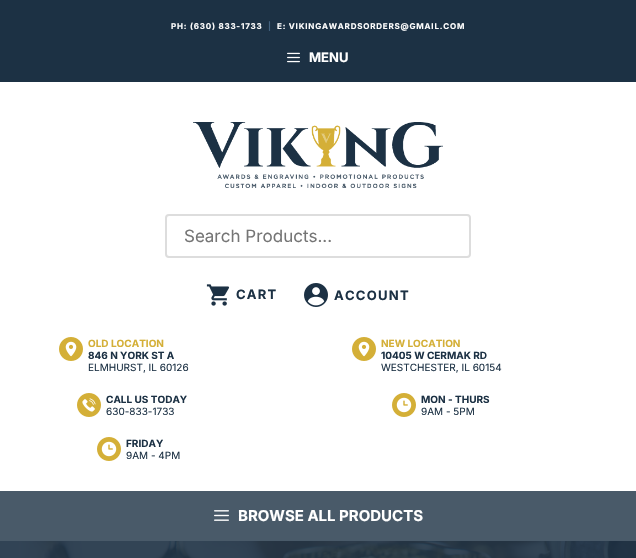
void draw(SkCanvas* canvas) {
	SkPaint paint;
	paint.setAntiAlias(true);
	auto spacedText = [&](const char* s, float x, float y, const SkFont& font, const SkPaint& ink, float letter, float word) {
		std::vector<SkGlyphID> glyphs(font.countText(s, strlen(s), SkTextEncoding::kUTF8));
		std::vector<float> xs(glyphs.size());
		font.textToGlyphs(s, strlen(s), SkTextEncoding::kUTF8, glyphs);
		font.getXPos(glyphs, xs, x);
		float extra = 0;
		for (size_t i = 0; i < glyphs.size(); i++) {
			xs[i] += extra;
			extra += letter + word * (glyphs[i] == font.unicharToGlyph(' '));
		}
		canvas->drawTextBlob(SkTextBlob::MakeFromPosHGlyphs(glyphs, xs, y, font), 0, 0, ink);
	};
	canvas->clear(0xffffffff);
	paint.setColor(0xff1c3144);
	canvas->drawRect(SkRect::MakeXYWH(0, 0, 636, 82), paint);
	SkFont f1(fontMgr->matchFamilyStyle("Inter", SkFontStyle::Bold()), 8);
	f1.setSubpixel(true);
	paint.setColor(0xffffffff);
	spacedText("PH: (630) 833-1733", 171, 29, f1, paint, 0.8, 0);
	paint.setColor(0xff436280);
	spacedText("|", 268, 29, f1, paint, 0.8, 0);
	paint.setColor(0xffffffff);
	spacedText("E: VIKINGAWARDSORDERS@GMAIL.COM", 277, 29, f1, paint, 0.8, 0);
	canvas->drawImageRect(SkImages::DeferredFromEncodedData(SkData::MakeFromFileName("img1.png")), SkRect::MakeXYWH(287, 52, 13, 11), SkSamplingOptions());
	SkFont f2(fontMgr->matchFamilyStyle("Inter", SkFontStyle::Bold()), 13);
	f2.setSubpixel(true);
	canvas->drawString("MENU", 309, 62, f2, paint);
	canvas->drawImageRect(SkImages::DeferredFromEncodedData(SkData::MakeFromFileName("img2.png")), SkRect::MakeXYWH(193, 122, 250, 66), SkSamplingOptions());
	paint.setStroke(true);
	paint.setStrokeWidth(2);
	paint.setColor(0xffdddddd);
	canvas->drawRoundRect(SkRect::MakeXYWH(166, 215, 304, 42), 3, 3, paint);
	SkFont f3(fontMgr->matchFamilyStyle("Inter", SkFontStyle::Normal()), 17);
	f3.setSubpixel(true);
	paint.setStroke(false);
	paint.setColor(0xff757575);
	canvas->drawString("Search Products...", 184, 242, f3, paint);
	canvas->drawImageRect(SkImages::DeferredFromEncodedData(SkData::MakeFromFileName("img3.png")), SkRect::MakeXYWH(206, 284, 24, 22), SkSamplingOptions());
	paint.setColor(0xff1c3144);
	spacedText("CART", 236, 299, f2, paint, 1.25, 0);
	canvas->drawImageRect(SkImages::DeferredFromEncodedData(SkData::MakeFromFileName("img4.png")), SkRect::MakeXYWH(304, 283, 24, 24), SkSamplingOptions());
	spacedText("ACCOUNT", 334, 300, f2, paint, 1.25, 0);
	canvas->drawImageRect(SkImages::DeferredFromEncodedData(SkData::MakeFromFileName("img5.png")), SkRect::MakeXYWH(59, 337, 24, 24), SkSamplingOptions());
	SkFont f4(fontMgr->matchFamilyStyle("Inter", SkFontStyle::Bold()), 10);
	f4.setSubpixel(true);
	paint.setColor(0xffd4af37);
	canvas->drawString("OLD LOCATION", 88, 347, f4, paint);
	paint.setColor(0xff1c3144);
	canvas->drawString("846 N YORK ST A", 88, 359, f4, paint);
	SkFont f5(fontMgr->matchFamilyStyle("Inter", SkFontStyle::Normal()), 10);
	f5.setSubpixel(true);
	canvas->drawString("ELMHURST, IL 60126", 88, 371, f5, paint);
	canvas->drawImageRect(SkImages::DeferredFromEncodedData(SkData::MakeFromFileName("img5.png")), SkRect::MakeXYWH(352, 337, 24, 24), SkSamplingOptions());
	paint.setColor(0xffd4af37);
	canvas->drawString("NEW LOCATION", 381, 347, f4, paint);
	paint.setColor(0xff1c3144);
	canvas->drawString("10405 W CERMAK RD", 381, 359, f4, paint);
	canvas->drawString("WESTCHESTER, IL 60154", 381, 371, f5, paint);
	canvas->drawImageRect(SkImages::DeferredFromEncodedData(SkData::MakeFromFileName("img6.png")), SkRect::MakeXYWH(77, 393, 24, 24), SkSamplingOptions());
	canvas->drawString("CALL US TODAY", 106, 403, f4, paint);
	canvas->drawString("630-833-1733", 106, 415, f5, paint);
	canvas->drawImageRect(SkImages::DeferredFromEncodedData(SkData::MakeFromFileName("img7.png")), SkRect::MakeXYWH(392, 393, 24, 24), SkSamplingOptions());
	canvas->drawString("MON - THURS", 421, 403, f4, paint);
	canvas->drawString("9AM - 5PM", 421, 415, f5, paint);
	canvas->drawImageRect(SkImages::DeferredFromEncodedData(SkData::MakeFromFileName("img7.png")), SkRect::MakeXYWH(97, 437, 24, 24), SkSamplingOptions());
	canvas->drawString("FRIDAY", 126, 447, f4, paint);
	canvas->drawString("9AM - 4PM", 126, 459, f5, paint);
	paint.setColor(0xff495a69);
	canvas->drawRect(SkRect::MakeXYWH(0, 491, 636, 50), paint);
	canvas->drawImageRect(SkImages::DeferredFromEncodedData(SkData::MakeFromFileName("img8.png")), SkRect::MakeXYWH(214, 510, 15, 11), SkSamplingOptions());
	SkFont f6(fontMgr->matchFamilyStyle("Inter", SkFontStyle::Bold()), 15);
	f6.setSubpixel(true);
	paint.setColor(0xffffffff);
	canvas->drawString("BROWSE ALL PRODUCTS", 238, 521, f6, paint);
	paint.setColor(0xff1c3144);
	canvas->drawRect(SkRect::MakeXYWH(0, 541, 636, 17), paint);
	canvas->drawImageRect(SkImages::DeferredFromEncodedData(SkData::MakeFromFileName("img9.png")), SkRect::MakeXYWH(0, 541, 636, 17), SkSamplingOptions());
}
